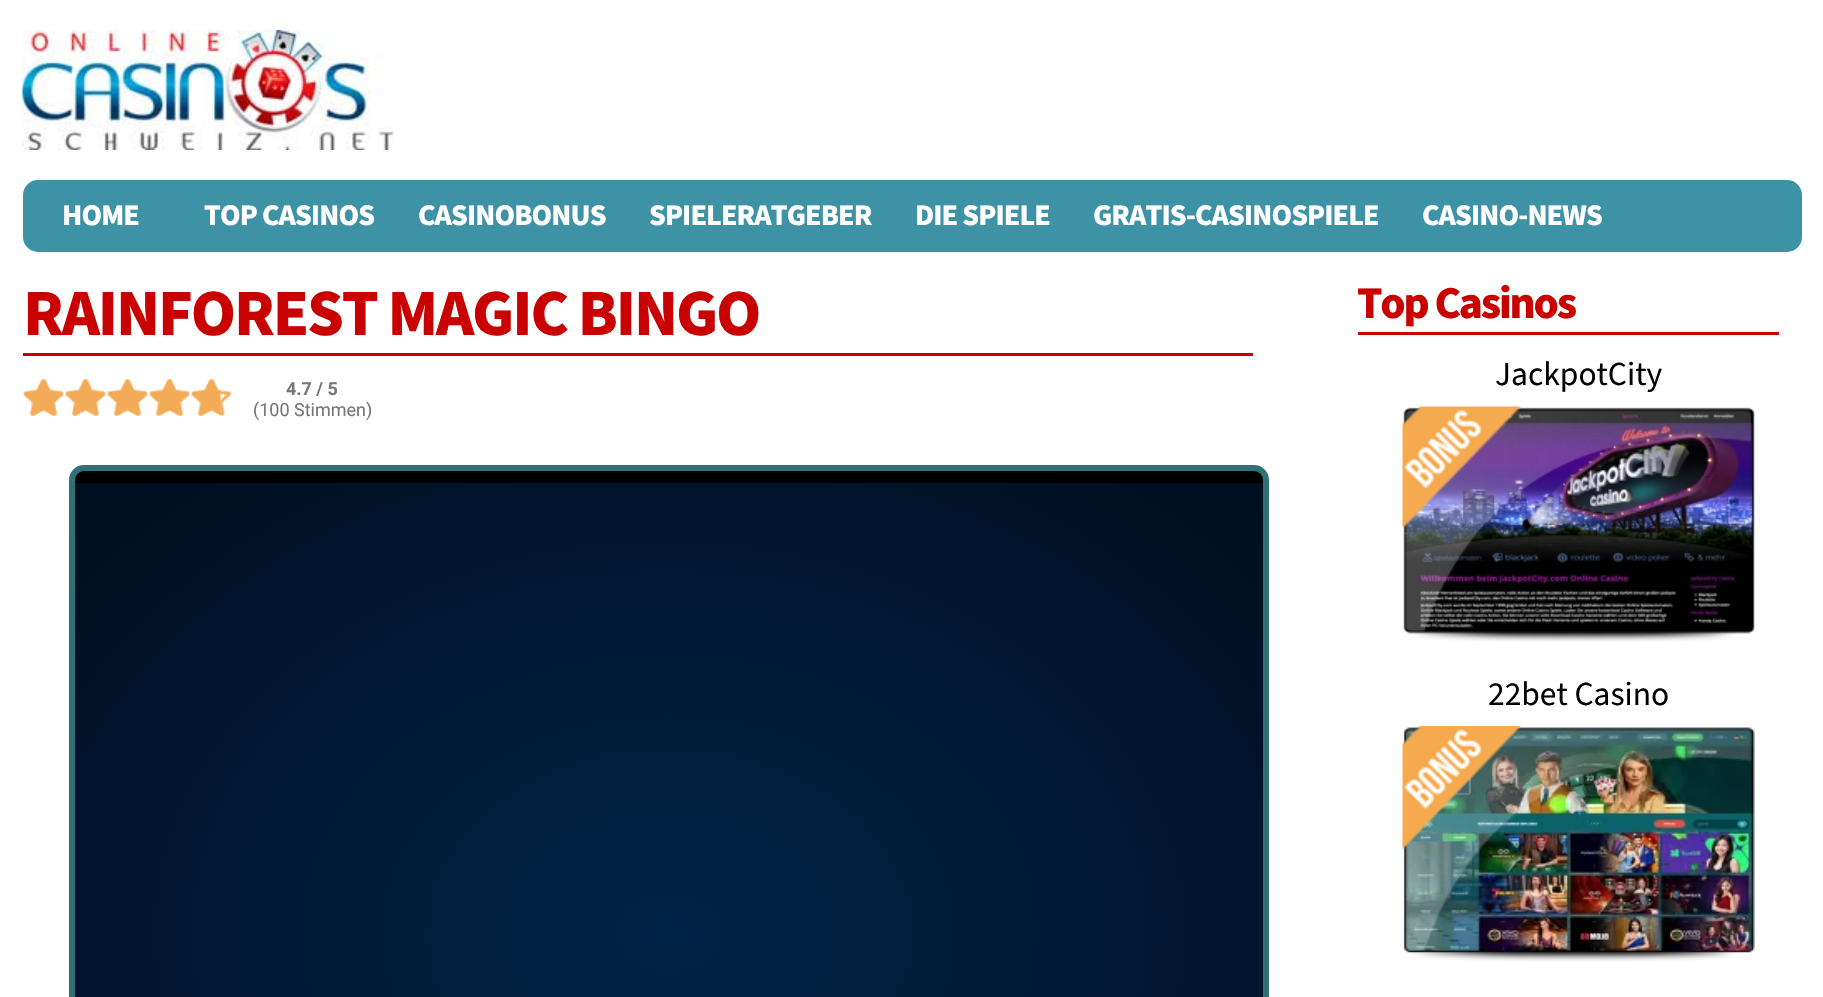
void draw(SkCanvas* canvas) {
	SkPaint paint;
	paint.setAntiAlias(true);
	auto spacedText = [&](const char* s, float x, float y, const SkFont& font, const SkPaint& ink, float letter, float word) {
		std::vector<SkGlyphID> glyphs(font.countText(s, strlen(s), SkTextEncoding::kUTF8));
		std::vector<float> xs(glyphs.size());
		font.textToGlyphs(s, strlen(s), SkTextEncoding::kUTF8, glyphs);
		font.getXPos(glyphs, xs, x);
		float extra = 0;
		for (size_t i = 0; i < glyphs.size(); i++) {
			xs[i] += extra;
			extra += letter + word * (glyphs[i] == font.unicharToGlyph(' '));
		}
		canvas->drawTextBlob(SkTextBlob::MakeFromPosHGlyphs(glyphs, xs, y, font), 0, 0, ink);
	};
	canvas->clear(0xffffffff);
	canvas->drawImageRect(SkImages::DeferredFromEncodedData(SkData::MakeFromFileName("img1.png")), SkRect::MakeXYWH(22, 30, 372, 120), SkSamplingOptions());
	paint.setColor(0xff3d92a5);
	canvas->drawRoundRect(SkRect::MakeXYWH(23, 180, 1779, 72), 15, 15, paint);
	SkFont f1(fontMgr->matchFamilyStyle("Source Sans 3", SkFontStyle(800, SkFontStyle::kNormal_Width, SkFontStyle::kUpright_Slant)), 30);
	f1.setSubpixel(true);
	paint.setColor(0xffffffff);
	spacedText("HOME", 62, 225, f1, paint, -0.9, 0);
	spacedText("TOP CASINOS", 204, 225, f1, paint, -0.9, 0);
	spacedText("CASINOBONUS", 418, 225, f1, paint, -0.9, 0);
	spacedText("SPIELERATGEBER", 649, 225, f1, paint, -0.9, 0);
	spacedText("DIE SPIELE", 915, 225, f1, paint, -0.9, 0);
	spacedText("GRATIS-CASINOSPIELE", 1093, 225, f1, paint, -0.9, 0);
	spacedText("CASINO-NEWS", 1422, 225, f1, paint, -0.9, 0);
	SkFont f2(fontMgr->matchFamilyStyle("Source Sans 3", SkFontStyle(800, SkFontStyle::kNormal_Width, SkFontStyle::kUpright_Slant)), 66);
	f2.setSubpixel(true);
	paint.setColor(0xffc90100);
	spacedText("RAINFOREST MAGIC BINGO", 23, 335, f2, paint, -2.2, 0);
	canvas->drawRect(SkRect::MakeXYWH(23, 353, 1230, 3), paint);
	canvas->drawImageRect(SkImages::DeferredFromEncodedData(SkData::MakeFromFileName("img2.png")), SkRect::MakeXYWH(23, 379, 209, 37), SkSamplingOptions());
	canvas->drawImageRect(SkImages::DeferredFromEncodedData(SkData::MakeFromFileName("img3.png")), SkRect::MakeXYWH(23, 379, 198, 37), SkSamplingOptions());
	SkFont f3(fontMgr->matchFamilyStyle("Roboto", SkFontStyle::Bold()), 18);
	f3.setSubpixel(true);
	paint.setColor(0xff777777);
	canvas->drawString("4.7 / 5", 286, 395, f3, paint);
	SkFont f4(fontMgr->matchFamilyStyle("Roboto", SkFontStyle::Normal()), 18);
	f4.setSubpixel(true);
	canvas->drawString("(100 Stimmen)", 253, 416, f4, paint);
	paint.setColor(0xff000000);
	canvas->drawRoundRect(SkRect::MakeXYWH(72, 468, 1194, 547), 12, 12, paint);
	paint.setStroke(true);
	paint.setStrokeWidth(6);
	paint.setColor(0xff307178);
	canvas->drawRoundRect(SkRect::MakeXYWH(72, 468, 1194, 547), 12, 12, paint);
	canvas->drawImageRect(SkImages::DeferredFromEncodedData(SkData::MakeFromFileName("img4.png")), SkRect::MakeXYWH(75, 483, 1188, 514), SkSamplingOptions());
	SkFont f5(fontMgr->matchFamilyStyle("Source Sans 3", SkFontStyle(800, SkFontStyle::kNormal_Width, SkFontStyle::kUpright_Slant)), 45.5);
	f5.setSubpixel(true);
	paint.setStroke(false);
	paint.setColor(0xffc90100);
	spacedText("Top Casinos", 1357, 318, f5, paint, -2.2, 0);
	canvas->drawRect(SkRect::MakeXYWH(1358, 332, 421, 3), paint);
	SkFont f6(fontMgr->matchFamilyStyle("Source Sans 3", SkFontStyle::Normal()), 33.5);
	f6.setSubpixel(true);
	paint.setColor(0xff000000);
	canvas->drawString("JackpotCity", 1495, 385, f6, paint);
	canvas->drawImageRect(SkImages::DeferredFromEncodedData(SkData::MakeFromFileName("img6.png")), SkRect::MakeXYWH(1403, 407, 352, 235), SkSamplingOptions());
	canvas->drawImageRect(SkImages::DeferredFromEncodedData(SkData::MakeFromFileName("img5.png")), SkRect::MakeXYWH(1402, 406, 120, 123), SkSamplingOptions());
	canvas->drawString("22bet Casino", 1488, 705, f6, paint);
	canvas->drawImageRect(SkImages::DeferredFromEncodedData(SkData::MakeFromFileName("img8.png")), SkRect::MakeXYWH(1403, 727, 352, 235), SkSamplingOptions());
	canvas->drawImageRect(SkImages::DeferredFromEncodedData(SkData::MakeFromFileName("img7.png")), SkRect::MakeXYWH(1402, 726, 120, 124), SkSamplingOptions());
}
